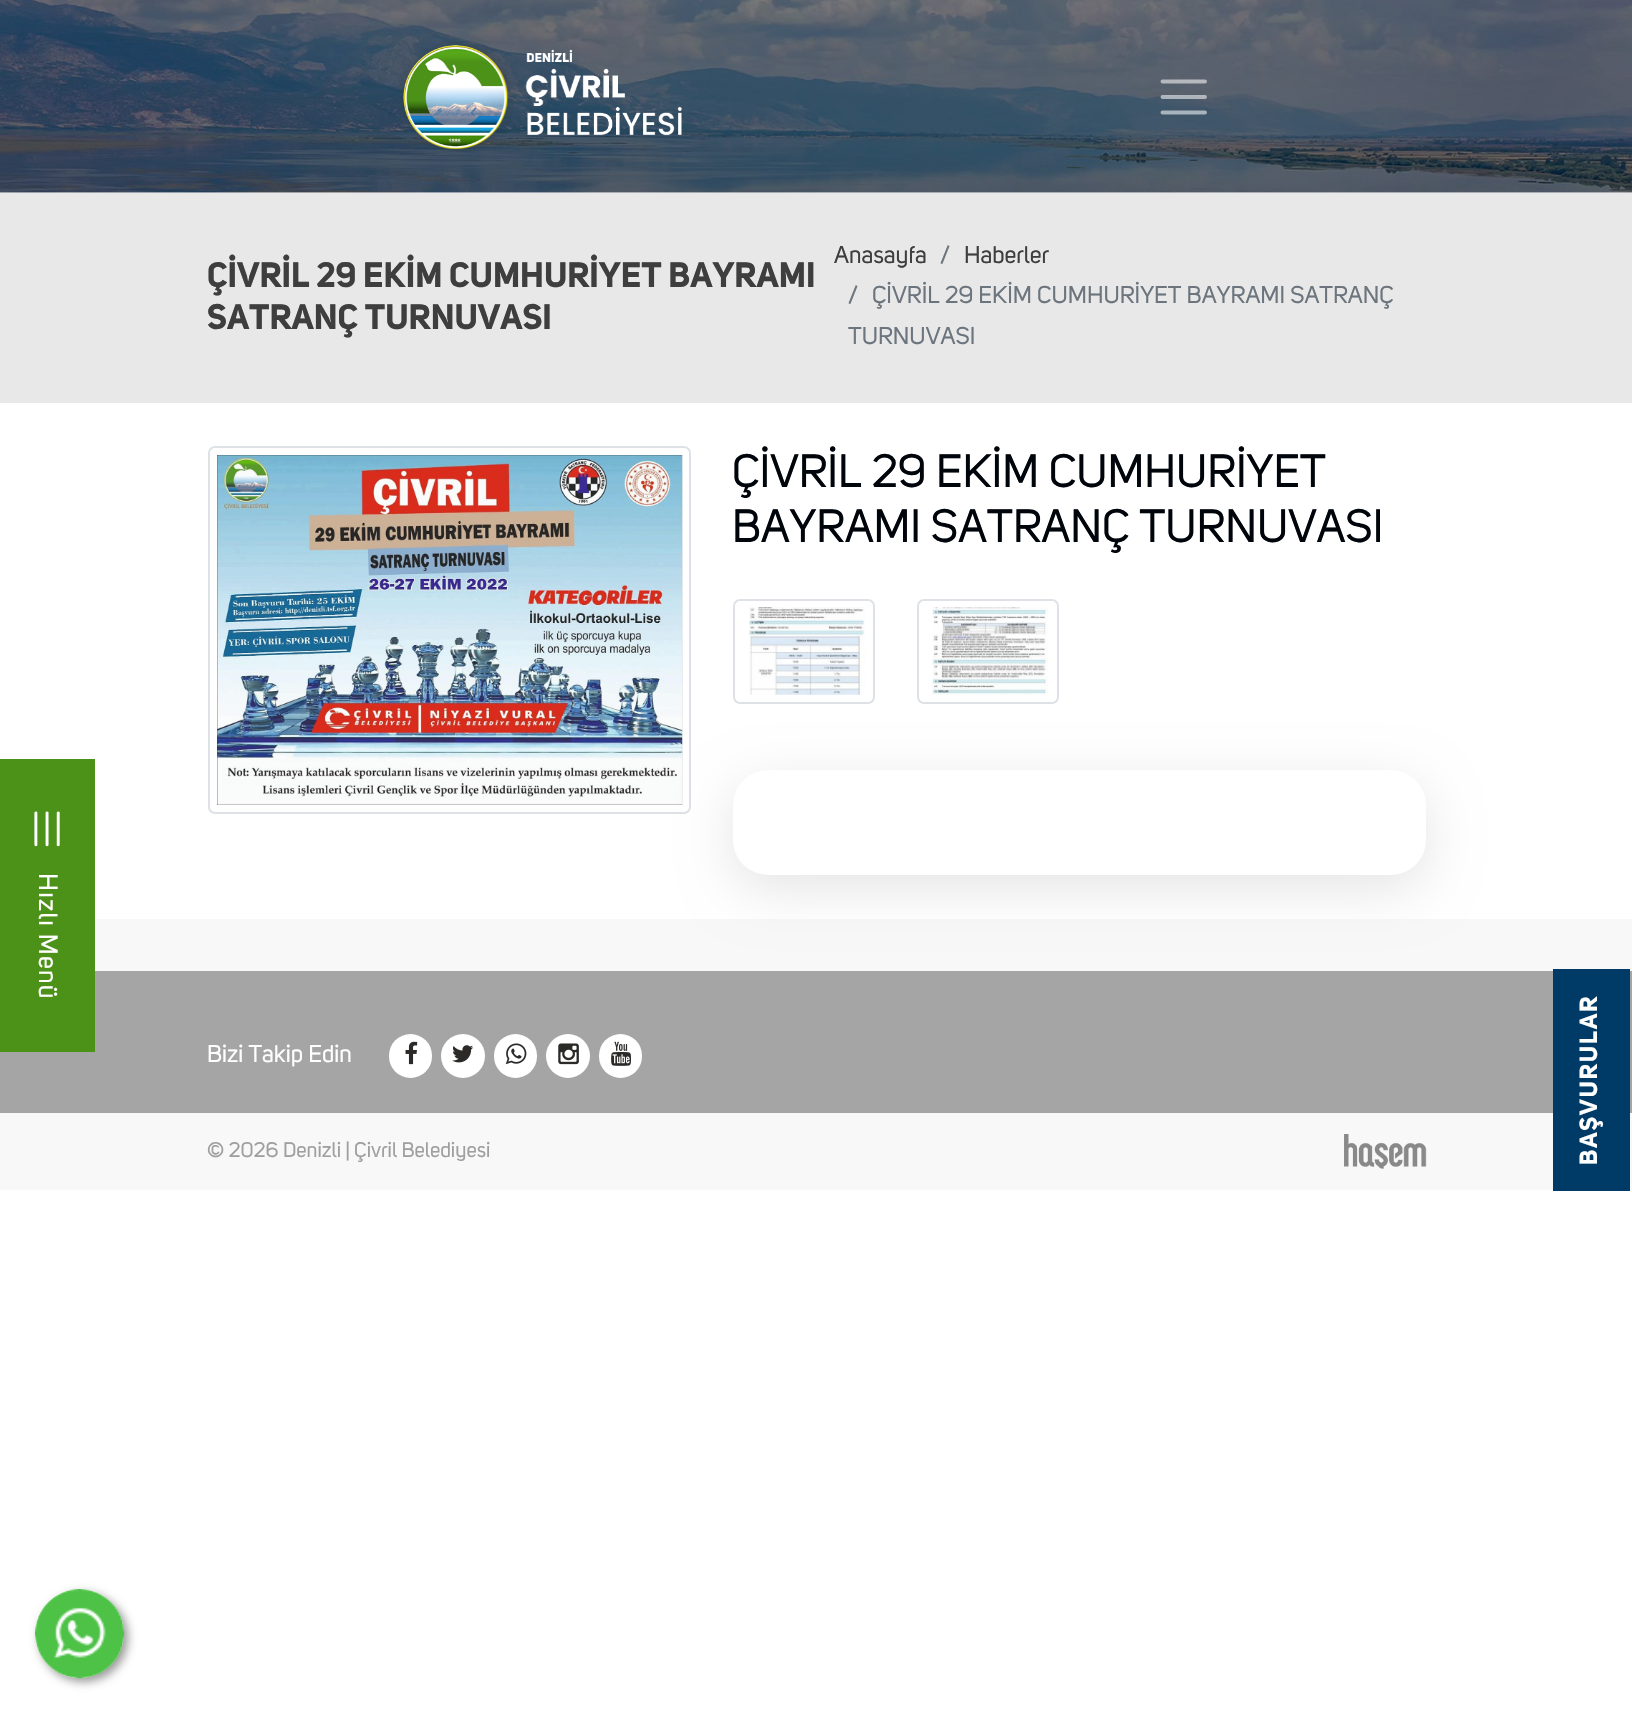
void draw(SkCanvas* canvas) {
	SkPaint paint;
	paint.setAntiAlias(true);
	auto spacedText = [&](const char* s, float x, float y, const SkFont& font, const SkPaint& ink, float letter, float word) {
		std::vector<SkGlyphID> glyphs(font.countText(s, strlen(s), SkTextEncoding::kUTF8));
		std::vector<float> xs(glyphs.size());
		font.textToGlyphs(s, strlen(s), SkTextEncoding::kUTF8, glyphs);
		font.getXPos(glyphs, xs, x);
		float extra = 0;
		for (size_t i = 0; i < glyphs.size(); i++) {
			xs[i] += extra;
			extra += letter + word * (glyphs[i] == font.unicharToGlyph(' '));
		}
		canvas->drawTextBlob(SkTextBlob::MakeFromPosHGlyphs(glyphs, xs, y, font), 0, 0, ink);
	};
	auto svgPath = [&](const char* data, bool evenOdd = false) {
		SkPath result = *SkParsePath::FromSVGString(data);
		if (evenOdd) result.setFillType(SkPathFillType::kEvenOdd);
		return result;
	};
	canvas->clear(0xffffffff);
	canvas->drawImageRect(SkImages::DeferredFromEncodedData(SkData::MakeFromFileName("img1.png")), SkRect::MakeXYWH(0, 0, 1632, 193), SkSamplingOptions());
	canvas->drawImageRect(SkImages::DeferredFromEncodedData(SkData::MakeFromFileName("img2.png")), SkRect::MakeXYWH(401, 41, 281, 111), SkSamplingOptions());
	paint.setStroke(true);
	paint.setStrokeWidth(3.9);
	paint.setStrokeCap(SkPaint::kRound_Cap);
	paint.setColor(0x8cffffff);
	canvas->drawPath(svgPath("M1162.5 81.5H1205M1162.5 97H1205M1162.5 112.5H1205"), paint);
	paint.setStroke(false);
	paint.setColor(0xffe8e8e8);
	canvas->drawRect(SkRect::MakeXYWH(0, 193, 1632, 210), paint);
	SkFont f1(fontMgr->matchFamilyStyle("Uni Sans", SkFontStyle::Bold()), 35);
	f1.setSubpixel(true);
	paint.setColor(0xff3e3e3e);
	canvas->drawString("ÇİVRİL 29 EKİM CUMHURİYET BAYRAMI", 207, 287, f1, paint);
	canvas->drawString("SATRANÇ TURNUVASI", 207, 329, f1, paint);
	SkFont f2(fontMgr->matchFamilyStyle("Uni Sans", SkFontStyle::Normal()), 24.1);
	f2.setSubpixel(true);
	canvas->drawString("Anasayfa", 834, 263, f2, paint);
	paint.setColor(0xff6c757d);
	canvas->drawString("/", 940, 263, f2, paint);
	paint.setColor(0xff3e3e3e);
	canvas->drawString("Haberler", 964, 263, f2, paint);
	paint.setColor(0xff6c757d);
	canvas->drawString("/", 848, 303, f2, paint);
	canvas->drawString("ÇİVRİL 29 EKİM CUMHURİYET BAYRAMI SATRANÇ", 872, 303, f2, paint);
	canvas->drawString("TURNUVASI", 848, 344, f2, paint);
	paint.setStroke(true);
	paint.setStrokeWidth(2);
	paint.setStrokeCap(SkPaint::kButt_Cap);
	paint.setColor(0xffdee2e6);
	canvas->drawRoundRect(SkRect::MakeXYWH(209, 447, 481, 366), 6, 6, paint);
	canvas->drawImageRect(SkImages::DeferredFromEncodedData(SkData::MakeFromFileName("img3.png")), SkRect::MakeXYWH(217, 455, 466, 350), SkSamplingOptions());
	SkFont f3(fontMgr->matchFamilyStyle("Uni Sans", SkFontStyle::Normal()), 46.25);
	f3.setSubpixel(true);
	paint.setStroke(false);
	paint.setColor(0xff00050b);
	canvas->drawString("ÇİVRİL 29 EKİM CUMHURİYET", 732, 487, f3, paint);
	canvas->drawString("BAYRAMI SATRANÇ TURNUVASI", 732, 542, f3, paint);
	paint.setStroke(true);
	paint.setColor(0xffdee2e6);
	canvas->drawRoundRect(SkRect::MakeXYWH(734, 600, 140, 103), 6, 6, paint);
	canvas->drawImageRect(SkImages::DeferredFromEncodedData(SkData::MakeFromFileName("img4.png")), SkRect::MakeXYWH(749, 607, 116, 88), SkSamplingOptions());
	canvas->drawRoundRect(SkRect::MakeXYWH(918, 600, 140, 103), 6, 6, paint);
	canvas->drawImageRect(SkImages::DeferredFromEncodedData(SkData::MakeFromFileName("img5.png")), SkRect::MakeXYWH(932, 607, 116, 88), SkSamplingOptions());
	paint.setStroke(false);
	paint.setColor(0xfff8f8f8);
	canvas->drawRect(SkRect::MakeXYWH(0, 919, 1632, 271), paint);
	paint.setColor(0x1a000000);
	paint.setMaskFilter(SkMaskFilter::MakeBlur(kNormal_SkBlurStyle, 26));
	canvas->drawRoundRect(SkRect::MakeXYWH(733, 784, 693, 105), 35, 35, paint);
	paint.setMaskFilter(nullptr);
	paint.setColor(0xffffffff);
	canvas->drawRoundRect(SkRect::MakeXYWH(733, 770, 693, 105), 35, 35, paint);
	paint.setColor(0xffa5a5a5);
	canvas->drawRect(SkRect::MakeXYWH(0, 971, 1632, 142), paint);
	paint.setColor(0xff4c9218);
	canvas->drawRect(SkRect::MakeXYWH(0, 759, 95, 293), paint);
	canvas->drawImageRect(SkImages::DeferredFromEncodedData(SkData::MakeFromFileName("img6.png")), SkRect::MakeXYWH(34, 811, 26, 36), SkSamplingOptions());
	SkFont f4(fontMgr->matchFamilyStyle("Uni Sans", SkFontStyle::Normal()), 26.25);
	f4.setSubpixel(true);
	paint.setColor(0xffffffff);
	canvas->save();
	canvas->rotate(90, 39, 873);
	spacedText("Hızlı Menü", 39, 873, f4, paint, 1.25, 0);
	canvas->restore();
	canvas->drawString("Bizi Takip Edin", 207, 1062, f2, paint);
	canvas->drawRoundRect(SkRect::MakeXYWH(389, 1034, 43, 44), 21.5, 21.5, paint);
	canvas->drawImageRect(SkImages::DeferredFromEncodedData(SkData::MakeFromFileName("img7.png")), SkRect::MakeXYWH(405, 1041, 13, 24), SkSamplingOptions());
	canvas->drawCircle(463, 1056, 22, paint);
	canvas->drawImageRect(SkImages::DeferredFromEncodedData(SkData::MakeFromFileName("img8.png")), SkRect::MakeXYWH(452, 1045, 22, 18), SkSamplingOptions());
	canvas->drawRoundRect(SkRect::MakeXYWH(494, 1034, 43, 44), 21.5, 21.5, paint);
	canvas->drawImageRect(SkImages::DeferredFromEncodedData(SkData::MakeFromFileName("img9.png")), SkRect::MakeXYWH(505, 1043, 22, 22), SkSamplingOptions());
	canvas->drawCircle(568, 1056, 22, paint);
	canvas->drawImageRect(SkImages::DeferredFromEncodedData(SkData::MakeFromFileName("img10.png")), SkRect::MakeXYWH(558, 1043, 21, 22), SkSamplingOptions());
	canvas->drawRoundRect(SkRect::MakeXYWH(599, 1034, 43, 44), 21.5, 21.5, paint);
	canvas->drawImageRect(SkImages::DeferredFromEncodedData(SkData::MakeFromFileName("img11.png")), SkRect::MakeXYWH(611, 1041, 20, 25), SkSamplingOptions());
	SkFont f5(fontMgr->matchFamilyStyle("Uni Sans", SkFontStyle::Normal()), 21);
	f5.setSubpixel(true);
	paint.setColor(0xff9f9f9f);
	canvas->drawString("© 2026 Denizli | Çivril Belediyesi", 207, 1157, f5, paint);
	canvas->drawImageRect(SkImages::DeferredFromEncodedData(SkData::MakeFromFileName("img12.png")), SkRect::MakeXYWH(1344, 1134, 83, 35), SkSamplingOptions());
	paint.setColor(0xff003b68);
	canvas->drawRect(SkRect::MakeXYWH(1553, 969, 77, 222), paint);
	SkFont f6(fontMgr->matchFamilyStyle("Uni Sans", SkFontStyle::Bold()), 24.5);
	f6.setSubpixel(true);
	paint.setColor(0xffffffff);
	canvas->save();
	canvas->rotate(-90, 1597, 1165);
	spacedText("BAŞVURULAR", 1597, 1165, f6, paint, 1.75, 0);
	canvas->restore();
	canvas->save();
	canvas->clipPath(svgPath("M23 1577H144V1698H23ZM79.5 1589C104 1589 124 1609 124 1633.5C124 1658 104 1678 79.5 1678C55 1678 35 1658 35 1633.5C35 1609 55 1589 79.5 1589Z", true), true);
	paint.setColor(0x66000000);
	paint.setMaskFilter(SkMaskFilter::MakeBlur(kNormal_SkBlurStyle, 5));
	canvas->drawRoundRect(SkRect::MakeXYWH(39, 1593, 89, 89), 44.5, 44.5, paint);
	paint.setMaskFilter(nullptr);
	canvas->restore();
	canvas->drawImageRect(SkImages::DeferredFromEncodedData(SkData::MakeFromFileName("img13.png")), SkRect::MakeXYWH(35, 1589, 90, 90), SkSamplingOptions());
}
